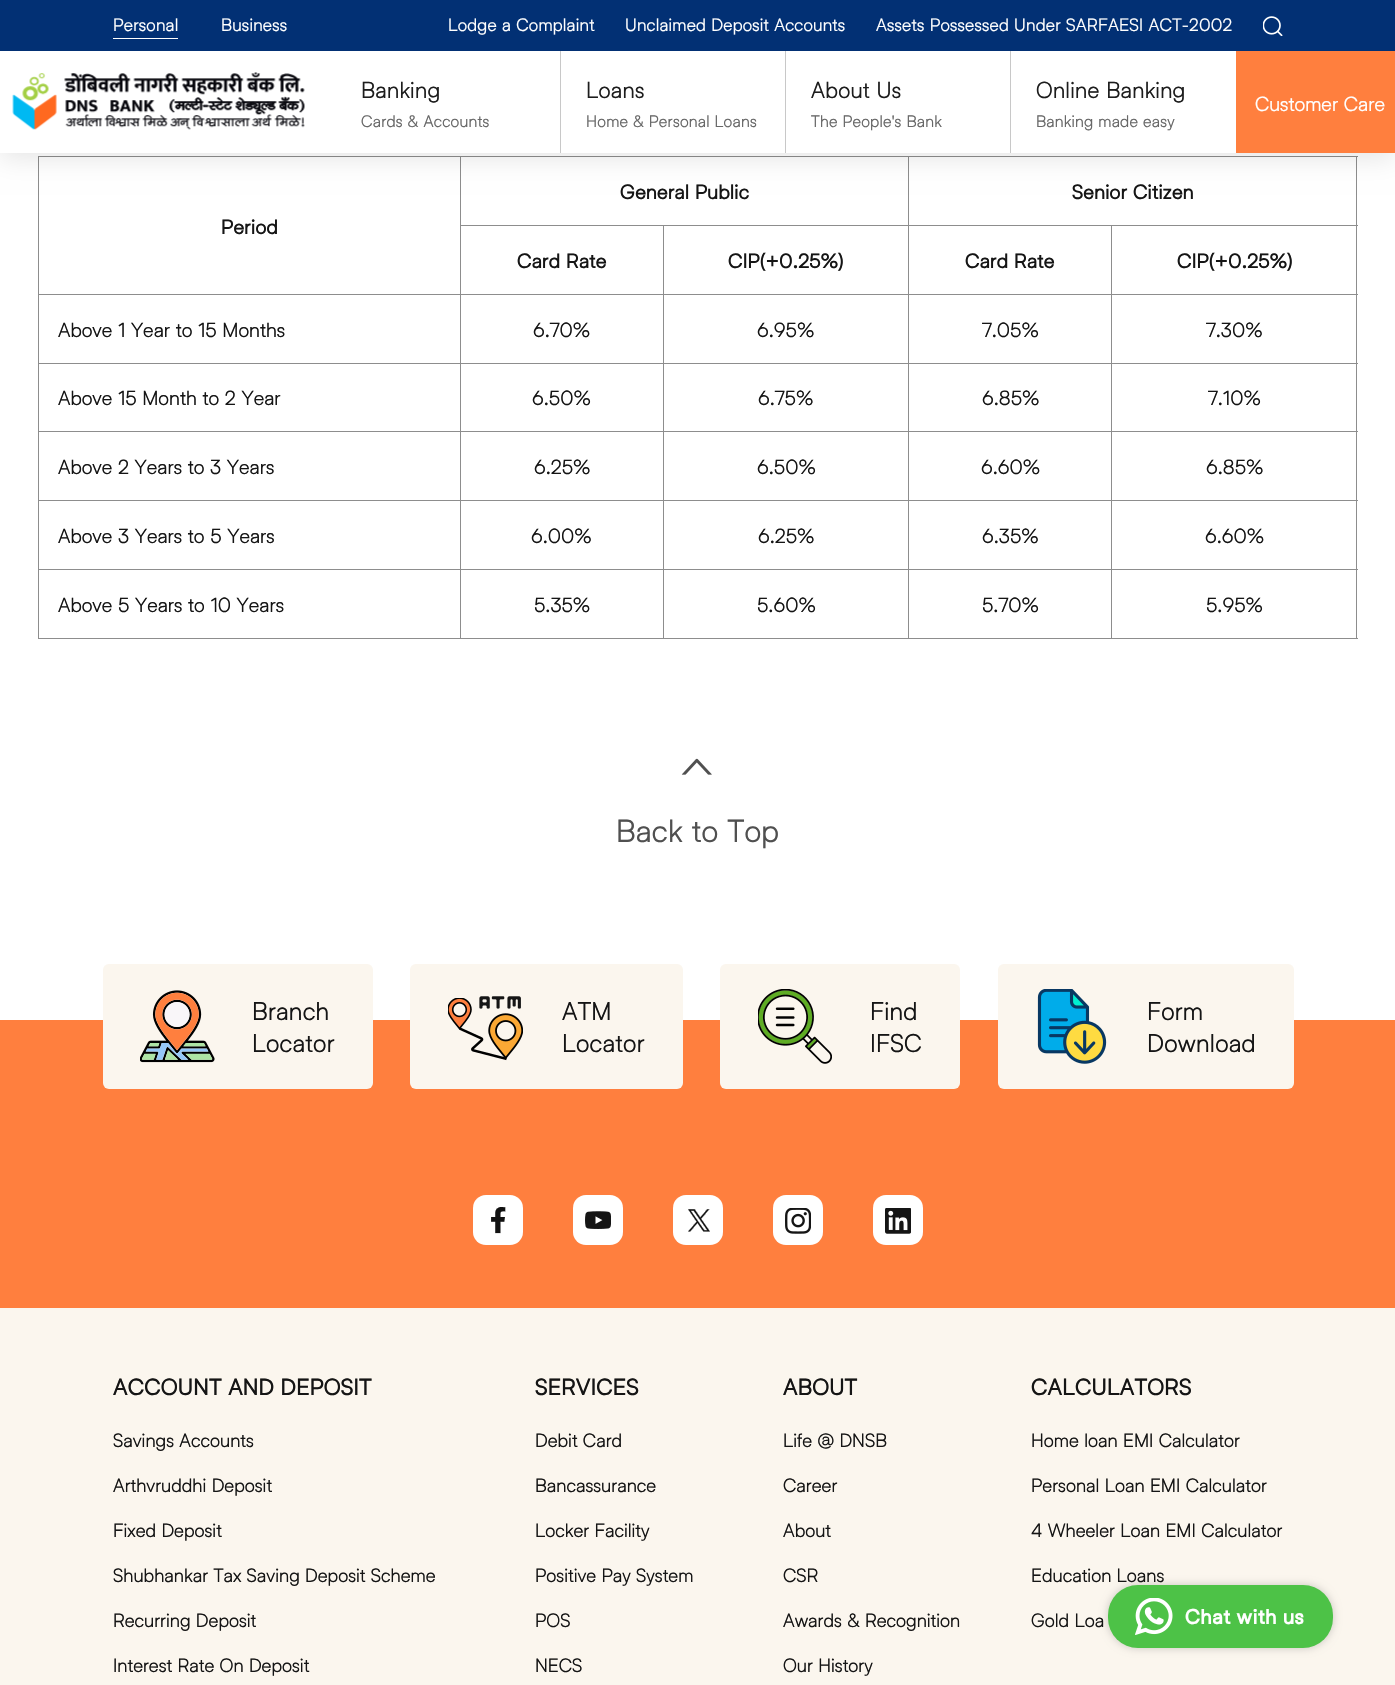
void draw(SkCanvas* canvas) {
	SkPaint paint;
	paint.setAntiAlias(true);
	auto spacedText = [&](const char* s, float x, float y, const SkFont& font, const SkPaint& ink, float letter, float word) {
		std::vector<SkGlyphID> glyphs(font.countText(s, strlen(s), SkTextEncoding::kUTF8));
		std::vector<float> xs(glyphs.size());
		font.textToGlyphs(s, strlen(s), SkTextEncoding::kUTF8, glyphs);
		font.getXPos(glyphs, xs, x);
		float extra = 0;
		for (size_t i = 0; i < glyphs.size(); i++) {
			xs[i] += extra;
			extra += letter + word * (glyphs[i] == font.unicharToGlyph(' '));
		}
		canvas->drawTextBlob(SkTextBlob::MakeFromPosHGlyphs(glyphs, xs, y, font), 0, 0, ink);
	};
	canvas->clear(0xffffffff);
	paint.setColor(0xff8d8d8d);
	canvas->drawRect(SkRect::MakeXYWH(38, 156, 1320, 1), paint);
	canvas->drawRect(SkRect::MakeXYWH(1356, 156, 1, 483), paint);
	canvas->drawRect(SkRect::MakeXYWH(38, 638, 1320, 1), paint);
	canvas->drawRect(SkRect::MakeXYWH(38, 156, 1, 483), paint);
	canvas->drawRect(SkRect::MakeXYWH(1111, 225, 247, 1), paint);
	canvas->drawRect(SkRect::MakeXYWH(1111, 294, 247, 1), paint);
	canvas->drawRect(SkRect::MakeXYWH(1111, 363, 247, 1), paint);
	canvas->drawRect(SkRect::MakeXYWH(1111, 431, 247, 1), paint);
	canvas->drawRect(SkRect::MakeXYWH(1111, 500, 247, 1), paint);
	canvas->drawRect(SkRect::MakeXYWH(1111, 569, 247, 1), paint);
	canvas->drawRect(SkRect::MakeXYWH(1111, 569, 1, 70), paint);
	canvas->drawRect(SkRect::MakeXYWH(908, 569, 205, 1), paint);
	canvas->drawRect(SkRect::MakeXYWH(1111, 500, 1, 70), paint);
	canvas->drawRect(SkRect::MakeXYWH(908, 500, 205, 1), paint);
	canvas->drawRect(SkRect::MakeXYWH(1111, 431, 1, 70), paint);
	canvas->drawRect(SkRect::MakeXYWH(908, 431, 205, 1), paint);
	canvas->drawRect(SkRect::MakeXYWH(1111, 363, 1, 70), paint);
	canvas->drawRect(SkRect::MakeXYWH(908, 363, 205, 1), paint);
	canvas->drawRect(SkRect::MakeXYWH(1111, 294, 1, 70), paint);
	canvas->drawRect(SkRect::MakeXYWH(908, 294, 205, 1), paint);
	canvas->drawRect(SkRect::MakeXYWH(1111, 225, 1, 70), paint);
	canvas->drawRect(SkRect::MakeXYWH(908, 225, 205, 1), paint);
	canvas->drawRect(SkRect::MakeXYWH(908, 569, 1, 70), paint);
	canvas->drawRect(SkRect::MakeXYWH(663, 569, 246, 1), paint);
	canvas->drawRect(SkRect::MakeXYWH(908, 500, 1, 70), paint);
	canvas->drawRect(SkRect::MakeXYWH(663, 500, 246, 1), paint);
	canvas->drawRect(SkRect::MakeXYWH(908, 431, 1, 70), paint);
	canvas->drawRect(SkRect::MakeXYWH(663, 431, 246, 1), paint);
	canvas->drawRect(SkRect::MakeXYWH(908, 363, 1, 70), paint);
	canvas->drawRect(SkRect::MakeXYWH(663, 363, 246, 1), paint);
	canvas->drawRect(SkRect::MakeXYWH(908, 294, 1, 70), paint);
	canvas->drawRect(SkRect::MakeXYWH(663, 294, 246, 1), paint);
	canvas->drawRect(SkRect::MakeXYWH(908, 225, 1, 70), paint);
	canvas->drawRect(SkRect::MakeXYWH(663, 225, 246, 1), paint);
	canvas->drawRect(SkRect::MakeXYWH(908, 156, 1, 70), paint);
	canvas->drawRect(SkRect::MakeXYWH(663, 569, 1, 70), paint);
	canvas->drawRect(SkRect::MakeXYWH(460, 569, 204, 1), paint);
	canvas->drawRect(SkRect::MakeXYWH(663, 500, 1, 70), paint);
	canvas->drawRect(SkRect::MakeXYWH(460, 500, 204, 1), paint);
	canvas->drawRect(SkRect::MakeXYWH(663, 431, 1, 70), paint);
	canvas->drawRect(SkRect::MakeXYWH(460, 431, 204, 1), paint);
	canvas->drawRect(SkRect::MakeXYWH(663, 363, 1, 70), paint);
	canvas->drawRect(SkRect::MakeXYWH(460, 363, 204, 1), paint);
	canvas->drawRect(SkRect::MakeXYWH(663, 294, 1, 70), paint);
	canvas->drawRect(SkRect::MakeXYWH(460, 294, 204, 1), paint);
	canvas->drawRect(SkRect::MakeXYWH(663, 225, 1, 70), paint);
	canvas->drawRect(SkRect::MakeXYWH(460, 225, 204, 1), paint);
	canvas->drawRect(SkRect::MakeXYWH(460, 569, 1, 70), paint);
	canvas->drawRect(SkRect::MakeXYWH(38, 569, 423, 1), paint);
	canvas->drawRect(SkRect::MakeXYWH(460, 500, 1, 70), paint);
	canvas->drawRect(SkRect::MakeXYWH(38, 500, 423, 1), paint);
	canvas->drawRect(SkRect::MakeXYWH(460, 431, 1, 70), paint);
	canvas->drawRect(SkRect::MakeXYWH(38, 431, 423, 1), paint);
	canvas->drawRect(SkRect::MakeXYWH(460, 363, 1, 70), paint);
	canvas->drawRect(SkRect::MakeXYWH(38, 363, 423, 1), paint);
	canvas->drawRect(SkRect::MakeXYWH(460, 294, 1, 70), paint);
	canvas->drawRect(SkRect::MakeXYWH(38, 294, 423, 1), paint);
	canvas->drawRect(SkRect::MakeXYWH(460, 156, 1, 139), paint);
	paint.setColor(0x1a000000);
	paint.setMaskFilter(SkMaskFilter::MakeBlur(kNormal_SkBlurStyle, 12.5));
	canvas->drawRect(SkRect::MakeXYWH(0, 5, 1395, 153), paint);
	paint.setMaskFilter(nullptr);
	paint.setColor(0xff023074);
	canvas->drawRect(SkRect::MakeXYWH(0, 0, 1395, 51), paint);
	SkFont f1(fontMgr->matchFamilyStyle("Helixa", SkFontStyle::Normal()), 17.5);
	f1.setSubpixel(true);
	paint.setColor(0xffffffff);
	spacedText("Personal", 113, 31, f1, paint, 0.2, 0);
	canvas->drawRect(SkRect::MakeXYWH(113, 38, 65, 1), paint);
	spacedText("Business", 221, 31, f1, paint, 0.2, 0);
	spacedText("Lodge a Complaint", 448, 31, f1, paint, 0.2, 0);
	spacedText("Unclaimed Deposit Accounts", 625, 31, f1, paint, 0.2, 0);
	spacedText("Assets Possessed Under SARFAESI ACT-2002", 876, 31, f1, paint, 0.2, 0);
	canvas->drawImageRect(SkImages::DeferredFromEncodedData(SkData::MakeFromFileName("img1.png")), SkRect::MakeXYWH(1263, 16, 20, 20), SkSamplingOptions());
	canvas->drawRect(SkRect::MakeXYWH(0, 51, 1236, 102), paint);
	canvas->drawImageRect(SkImages::DeferredFromEncodedData(SkData::MakeFromFileName("img2.png")), SkRect::MakeXYWH(12, 72, 293, 58), SkSamplingOptions());
	paint.setColor(0xffc8c8c8);
	canvas->drawRect(SkRect::MakeXYWH(560, 51, 1, 102), paint);
	SkFont f2(fontMgr->matchFamilyStyle("Helixa", SkFontStyle::Normal()), 22.5);
	f2.setSubpixel(true);
	paint.setColor(0xff1d1d1d);
	spacedText("Banking", 361, 98, f2, paint, 0.25, 0);
	SkFont f3(fontMgr->matchFamilyStyle("Helixa", SkFontStyle::Normal()), 16.25);
	f3.setSubpixel(true);
	paint.setColor(0xff686868);
	spacedText("Cards & Accounts", 361, 127, f3, paint, 0.2, 0);
	paint.setColor(0xffc8c8c8);
	canvas->drawRect(SkRect::MakeXYWH(785, 51, 1, 102), paint);
	paint.setColor(0xff1d1d1d);
	spacedText("Loans", 586, 98, f2, paint, 0.25, 0);
	paint.setColor(0xff686868);
	spacedText("Home & Personal Loans", 586, 127, f3, paint, 0.2, 0);
	paint.setColor(0xffc8c8c8);
	canvas->drawRect(SkRect::MakeXYWH(1010, 51, 1, 102), paint);
	paint.setColor(0xff1d1d1d);
	spacedText("About Us", 811, 98, f2, paint, 0.25, 0);
	paint.setColor(0xff686868);
	spacedText("The People's Bank", 811, 127, f3, paint, 0.2, 0);
	paint.setColor(0xff1d1d1d);
	spacedText("Online Banking", 1036, 98, f2, paint, 0.25, 0);
	paint.setColor(0xff686868);
	spacedText("Banking made easy", 1036, 127, f3, paint, 0.2, 0);
	paint.setColor(0xffff7f3e);
	canvas->drawRect(SkRect::MakeXYWH(1236, 51, 159, 102), paint);
	SkFont f4(fontMgr->matchFamilyStyle("Helixa", SkFontStyle::Normal()), 20);
	f4.setSubpixel(true);
	paint.setColor(0xffffffff);
	canvas->drawString("Customer Care", 1255, 111, f4, paint);
	SkFont f5(fontMgr->matchFamilyStyle("Helixa", SkFontStyle::Bold()), 20);
	f5.setSubpixel(true);
	paint.setColor(0xff151515);
	canvas->drawString("General Public", 620, 199, f5, paint);
	canvas->drawString("Senior Citizen", 1072, 199, f5, paint);
	canvas->drawString("Period", 221, 234, f5, paint);
	canvas->drawString("Card Rate", 517, 268, f5, paint);
	canvas->drawString("CIP(+0.25%)", 728, 268, f5, paint);
	canvas->drawString("Card Rate", 965, 268, f5, paint);
	canvas->drawString("CIP(+0.25%)", 1177, 268, f5, paint);
	canvas->drawString("Above 1 Year to 15 Months", 58, 337, f4, paint);
	canvas->drawString("6.70%", 533, 337, f4, paint);
	canvas->drawString("6.95%", 757, 337, f4, paint);
	canvas->drawString("7.05%", 982, 337, f4, paint);
	canvas->drawString("7.30%", 1206, 337, f4, paint);
	canvas->drawString("Above 15 Month to 2 Year", 58, 405, f4, paint);
	canvas->drawString("6.50%", 532, 405, f4, paint);
	canvas->drawString("6.75%", 758, 405, f4, paint);
	canvas->drawString("6.85%", 982, 405, f4, paint);
	canvas->drawString("7.10%", 1208, 405, f4, paint);
	canvas->drawString("Above 2 Years to 3 Years", 58, 474, f4, paint);
	canvas->drawString("6.25%", 534, 474, f4, paint);
	canvas->drawString("6.50%", 757, 474, f4, paint);
	canvas->drawString("6.60%", 981, 474, f4, paint);
	canvas->drawString("6.85%", 1206, 474, f4, paint);
	canvas->drawString("Above 3 Years to 5 Years", 58, 543, f4, paint);
	canvas->drawString("6.00%", 531, 543, f4, paint);
	canvas->drawString("6.25%", 758, 543, f4, paint);
	canvas->drawString("6.35%", 982, 543, f4, paint);
	canvas->drawString("6.60%", 1205, 543, f4, paint);
	canvas->drawString("Above 5 Years to 10 Years", 58, 612, f4, paint);
	canvas->drawString("5.35%", 534, 612, f4, paint);
	canvas->drawString("5.60%", 757, 612, f4, paint);
	canvas->drawString("5.70%", 982, 612, f4, paint);
	canvas->drawString("5.95%", 1206, 612, f4, paint);
	canvas->drawImageRect(SkImages::DeferredFromEncodedData(SkData::MakeFromFileName("img3.png")), SkRect::MakeXYWH(681, 758, 31, 17), SkSamplingOptions());
	SkFont f6(fontMgr->matchFamilyStyle("Helixa", SkFontStyle::Normal()), 31.25);
	f6.setSubpixel(true);
	paint.setColor(0xff505050);
	spacedText("Back to Top", 616, 842, f6, paint, 0.25, 0);
	paint.setColor(0xffff7f3e);
	canvas->drawRect(SkRect::MakeXYWH(0, 1020, 1395, 288), paint);
	paint.setColor(0xfffbf6ee);
	canvas->drawRoundRect(SkRect::MakeXYWH(103, 964, 270, 125), 6, 6, paint);
	canvas->drawImageRect(SkImages::DeferredFromEncodedData(SkData::MakeFromFileName("img4.png")), SkRect::MakeXYWH(140, 990, 75, 73), SkSamplingOptions());
	SkFont f7(fontMgr->matchFamilyStyle("Helixa", SkFontStyle::Normal()), 25);
	f7.setSubpixel(true);
	paint.setColor(0xff151515);
	spacedText("Branch", 252, 1020, f7, paint, 0.25, 0);
	spacedText("Locator", 252, 1052, f7, paint, 0.25, 0);
	paint.setColor(0xfffbf6ee);
	canvas->drawRoundRect(SkRect::MakeXYWH(410, 964, 273, 125), 6, 6, paint);
	canvas->drawImageRect(SkImages::DeferredFromEncodedData(SkData::MakeFromFileName("img5.png")), SkRect::MakeXYWH(448, 996, 75, 65), SkSamplingOptions());
	paint.setColor(0xff151515);
	spacedText("ATM", 562, 1020, f7, paint, 0.25, 0);
	spacedText("Locator", 562, 1052, f7, paint, 0.25, 0);
	paint.setColor(0xfffbf6ee);
	canvas->drawRoundRect(SkRect::MakeXYWH(720, 964, 240, 125), 6, 6, paint);
	canvas->drawImageRect(SkImages::DeferredFromEncodedData(SkData::MakeFromFileName("img6.png")), SkRect::MakeXYWH(758, 989, 74, 75), SkSamplingOptions());
	paint.setColor(0xff151515);
	spacedText("Find", 870, 1020, f7, paint, 0.25, 0);
	spacedText("IFSC", 870, 1052, f7, paint, 0.25, 0);
	paint.setColor(0xfffbf6ee);
	canvas->drawRoundRect(SkRect::MakeXYWH(998, 964, 296, 125), 6, 6, paint);
	canvas->drawImageRect(SkImages::DeferredFromEncodedData(SkData::MakeFromFileName("img7.png")), SkRect::MakeXYWH(1037, 989, 70, 75), SkSamplingOptions());
	paint.setColor(0xff151515);
	spacedText("Form", 1147, 1020, f7, paint, 0.25, 0);
	spacedText("Download", 1147, 1052, f7, paint, 0.25, 0);
	paint.setColor(0xffffffff);
	canvas->drawRoundRect(SkRect::MakeXYWH(473, 1195, 50, 50), 13, 13, paint);
	canvas->drawImageRect(SkImages::DeferredFromEncodedData(SkData::MakeFromFileName("img8.png")), SkRect::MakeXYWH(491, 1207, 15, 27), SkSamplingOptions());
	canvas->drawRoundRect(SkRect::MakeXYWH(573, 1195, 50, 50), 13, 13, paint);
	canvas->drawImageRect(SkImages::DeferredFromEncodedData(SkData::MakeFromFileName("img9.png")), SkRect::MakeXYWH(585, 1211, 26, 18), SkSamplingOptions());
	canvas->drawRoundRect(SkRect::MakeXYWH(673, 1195, 50, 50), 13, 13, paint);
	canvas->drawImageRect(SkImages::DeferredFromEncodedData(SkData::MakeFromFileName("img10.png")), SkRect::MakeXYWH(688, 1209, 22, 23), SkSamplingOptions());
	canvas->drawRoundRect(SkRect::MakeXYWH(773, 1195, 50, 50), 13, 13, paint);
	canvas->drawImageRect(SkImages::DeferredFromEncodedData(SkData::MakeFromFileName("img11.png")), SkRect::MakeXYWH(785, 1208, 26, 26), SkSamplingOptions());
	canvas->drawRoundRect(SkRect::MakeXYWH(873, 1195, 50, 50), 13, 13, paint);
	canvas->drawImageRect(SkImages::DeferredFromEncodedData(SkData::MakeFromFileName("img12.png")), SkRect::MakeXYWH(885, 1208, 26, 26), SkSamplingOptions());
	paint.setColor(0xfffbf6ee);
	canvas->drawRect(SkRect::MakeXYWH(0, 1308, 1395, 377), paint);
	SkFont f8(fontMgr->matchFamilyStyle("Helixa", SkFontStyle::Bold()), 22.5);
	f8.setSubpixel(true);
	paint.setColor(0xff151515);
	canvas->drawString("ACCOUNT AND DEPOSIT", 113, 1395, f8, paint);
	SkFont f9(fontMgr->matchFamilyStyle("Helixa", SkFontStyle::Normal()), 18.75);
	f9.setSubpixel(true);
	canvas->drawString("Savings Accounts", 113, 1447, f9, paint);
	canvas->drawString("Arthvruddhi Deposit", 113, 1492, f9, paint);
	canvas->drawString("Fixed Deposit", 113, 1537, f9, paint);
	canvas->drawString("Shubhankar Tax Saving Deposit Scheme", 113, 1582, f9, paint);
	canvas->drawString("Recurring Deposit", 113, 1627, f9, paint);
	canvas->drawString("Interest Rate On Deposit", 113, 1672, f9, paint);
	canvas->drawString("SERVICES", 535, 1395, f8, paint);
	canvas->drawString("Debit Card", 535, 1447, f9, paint);
	canvas->drawString("Bancassurance", 535, 1492, f9, paint);
	canvas->drawString("Locker Facility", 535, 1537, f9, paint);
	canvas->drawString("Positive Pay System", 535, 1582, f9, paint);
	canvas->drawString("POS", 535, 1627, f9, paint);
	canvas->drawString("NECS", 535, 1672, f9, paint);
	canvas->drawString("ABOUT", 783, 1395, f8, paint);
	canvas->drawString("Life @ DNSB", 783, 1447, f9, paint);
	canvas->drawString("Career", 783, 1492, f9, paint);
	canvas->drawString("About", 783, 1537, f9, paint);
	canvas->drawString("CSR", 783, 1582, f9, paint);
	canvas->drawString("Awards & Recognition", 783, 1627, f9, paint);
	canvas->drawString("Our History", 783, 1672, f9, paint);
	canvas->drawString("CALCULATORS", 1031, 1395, f8, paint);
	canvas->drawString("Home loan EMI Calculator", 1031, 1447, f9, paint);
	canvas->drawString("Personal Loan EMI Calculator", 1031, 1492, f9, paint);
	canvas->drawString("4 Wheeler Loan EMI Calculator", 1031, 1537, f9, paint);
	canvas->drawString("Education Loans", 1031, 1582, f9, paint);
	canvas->drawString("Gold Loa", 1031, 1627, f9, paint);
	paint.setColor(0x33000000);
	paint.setMaskFilter(SkMaskFilter::MakeBlur(kNormal_SkBlurStyle, 4.5));
	canvas->drawRoundRect(SkRect::MakeXYWH(1108, 1585, 225, 63), 30, 30, paint);
	paint.setMaskFilter(nullptr);
	paint.setColor(0xff4dc247);
	canvas->drawRoundRect(SkRect::MakeXYWH(1108, 1585, 225, 63), 30, 30, paint);
	canvas->drawImageRect(SkImages::DeferredFromEncodedData(SkData::MakeFromFileName("img13.png")), SkRect::MakeXYWH(1135, 1598, 38, 37), SkSamplingOptions());
	SkFont f10(fontMgr->matchFamilyStyle("Helixa", SkFontStyle(900, SkFontStyle::kNormal_Width, SkFontStyle::kUpright_Slant)), 20);
	f10.setSubpixel(true);
	paint.setColor(0xffffffff);
	spacedText("Chat with us", 1185, 1624, f10, paint, 0.25, 0);
}
